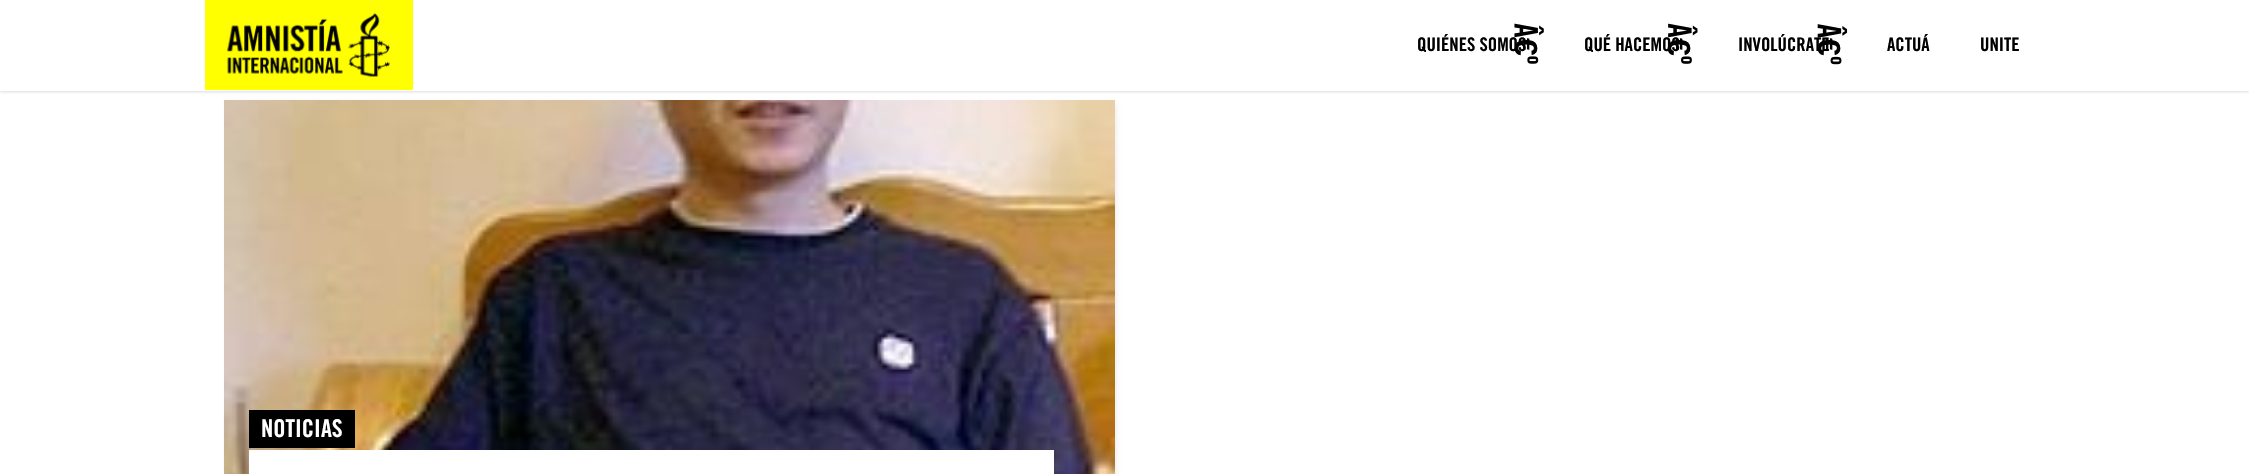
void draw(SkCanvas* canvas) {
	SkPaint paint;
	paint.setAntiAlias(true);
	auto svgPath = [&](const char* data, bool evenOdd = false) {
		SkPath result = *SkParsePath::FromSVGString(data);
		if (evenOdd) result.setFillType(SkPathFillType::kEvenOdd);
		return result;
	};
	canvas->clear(0xffffffff);
	canvas->save();
	canvas->clipRect(SkRect::MakeXYWH(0, 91, 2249, 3));
	paint.setColor(0x33000000);
	paint.setMaskFilter(SkMaskFilter::MakeBlur(kNormal_SkBlurStyle, 2));
	canvas->drawRect(SkRect::MakeXYWH(0, 0, 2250, 91), paint);
	paint.setMaskFilter(nullptr);
	canvas->restore();
	paint.setColor(0xffffff00);
	canvas->drawRect(SkRect::MakeXYWH(205, 0, 208, 90), paint);
	canvas->drawImageRect(SkImages::DeferredFromEncodedData(SkData::MakeFromFileName("img1.png")), SkRect::MakeXYWH(227, 13, 163, 64), SkSamplingOptions());
	SkFont f1(fontMgr->matchFamilyStyle("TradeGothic", SkFontStyle::Bold()), 18.75);
	f1.setSubpixel(true);
	paint.setColor(0xff000000);
	canvas->drawString("QUIÉNES SOMOS", 1417, 51, f1, paint);
	canvas->drawImageRect(SkImages::DeferredFromEncodedData(SkData::MakeFromFileName("img2.png")), SkRect::MakeXYWH(1514, 23, 30, 15), SkSamplingOptions());
	canvas->drawImageRect(SkImages::DeferredFromEncodedData(SkData::MakeFromFileName("img3.png")), SkRect::MakeXYWH(1527, 56, 12, 8), SkSamplingOptions());
	SkFont f2(fontMgr->matchFamilyStyle("Liberation Sans", SkFontStyle::Bold()), 32);
	f2.setSubpixel(true);
	canvas->save();
	canvas->rotate(90, 1515, 38);
	canvas->drawString("€", 1515, 38, f2, paint);
	canvas->restore();
	canvas->drawString("QUÉ HACEMOS", 1584, 51, f1, paint);
	canvas->drawImageRect(SkImages::DeferredFromEncodedData(SkData::MakeFromFileName("img4.png")), SkRect::MakeXYWH(1668, 23, 30, 15), SkSamplingOptions());
	canvas->drawImageRect(SkImages::DeferredFromEncodedData(SkData::MakeFromFileName("img5.png")), SkRect::MakeXYWH(1681, 56, 11, 8), SkSamplingOptions());
	canvas->save();
	canvas->rotate(90, 1668, 38);
	canvas->drawString("€", 1668, 38, f2, paint);
	canvas->restore();
	canvas->drawString("INVOLÚCRATE", 1738, 51, f1, paint);
	canvas->drawImageRect(SkImages::DeferredFromEncodedData(SkData::MakeFromFileName("img6.png")), SkRect::MakeXYWH(1817, 24, 31, 14), SkSamplingOptions());
	canvas->drawImageRect(SkImages::DeferredFromEncodedData(SkData::MakeFromFileName("img7.png")), SkRect::MakeXYWH(1830, 56, 12, 9), SkSamplingOptions());
	canvas->save();
	canvas->rotate(90, 1818, 38);
	canvas->drawString("€", 1818, 38, f2, paint);
	canvas->restore();
	canvas->drawString("ACTUÁ", 1887, 51, f1, paint);
	canvas->drawString("UNITE", 1980, 51, f1, paint);
	canvas->save();
	canvas->clipRect(SkRect::MakeXYWH(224, 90, 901, 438));
	paint.setColor(0x1a000000);
	paint.setMaskFilter(SkMaskFilter::MakeBlur(kNormal_SkBlurStyle, 3));
	canvas->drawRect(SkRect::MakeXYWH(224, 104, 891, 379), paint);
	paint.setMaskFilter(nullptr);
	canvas->restore();
	canvas->drawImageRect(SkImages::DeferredFromEncodedData(SkData::MakeFromFileName("img8.png")), SkRect::MakeXYWH(223, 100, 892, 374), SkSamplingOptions());
	paint.setColor(0xff000000);
	canvas->drawRect(SkRect::MakeXYWH(249, 410, 106, 38), paint);
	SkFont f3(fontMgr->matchFamilyStyle("TradeGothic", SkFontStyle::Bold()), 24.5);
	f3.setSubpixel(true);
	paint.setColor(0xffffffff);
	canvas->drawString("NOTICIAS", 261, 437, f3, paint);
	canvas->drawPath(svgPath("M249 450V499H1031H260V450Z"), paint);
	canvas->drawRect(SkRect::MakeXYWH(260, 450, 782, 24), paint);
	canvas->drawPath(svgPath("M271 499H1054V450H1042V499Z"), paint);
}
